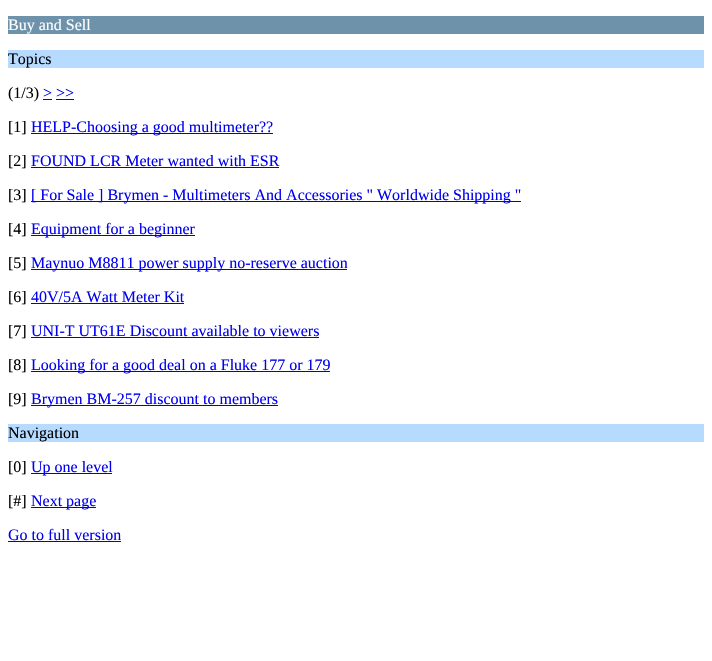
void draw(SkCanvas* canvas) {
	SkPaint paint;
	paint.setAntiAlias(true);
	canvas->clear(0xffffffff);
	paint.setColor(0xff6d92aa);
	canvas->drawRect(SkRect::MakeXYWH(8, 16, 696, 18), paint);
	SkFont f1(fontMgr->matchFamilyStyle("Liberation Serif", SkFontStyle::Normal()), 16);
	f1.setSubpixel(true);
	paint.setColor(0xffffffff);
	canvas->drawString("Buy and Sell", 8, 30, f1, paint);
	paint.setColor(0xffb6dbff);
	canvas->drawRect(SkRect::MakeXYWH(8, 50, 696, 18), paint);
	paint.setColor(0xff000000);
	canvas->drawString("Topics", 8, 64, f1, paint);
	canvas->drawString("(1/3)", 8, 98, f1, paint);
	paint.setColor(0xff0000ee);
	canvas->drawString("> >>", 43, 98, f1, paint);
	canvas->drawRect(SkRect::MakeXYWH(43, 99, 9, 1), paint);
	canvas->drawRect(SkRect::MakeXYWH(56, 99, 18, 1), paint);
	paint.setColor(0xff000000);
	canvas->drawString("[1]", 8, 132, f1, paint);
	paint.setColor(0xff0000ee);
	canvas->drawRect(SkRect::MakeXYWH(31, 133, 242, 1), paint);
	canvas->drawString("HELP-Choosing a good multimeter?\077", 31, 132, f1, paint);
	paint.setColor(0xff000000);
	canvas->drawString("[2]", 8, 166, f1, paint);
	paint.setColor(0xff0000ee);
	canvas->drawString("FOUND LCR Meter wanted with ESR", 31, 166, f1, paint);
	canvas->drawRect(SkRect::MakeXYWH(31, 167, 248, 1), paint);
	paint.setColor(0xff000000);
	canvas->drawString("[3]", 8, 200, f1, paint);
	paint.setColor(0xff0000ee);
	canvas->drawRect(SkRect::MakeXYWH(31, 201, 490, 1), paint);
	canvas->drawString("[ For Sale ] Brymen - Multimeters And Accessories \" Worldwide Shipping \"", 31, 200, f1, paint);
	paint.setColor(0xff000000);
	canvas->drawString("[4]", 8, 234, f1, paint);
	paint.setColor(0xff0000ee);
	canvas->drawRect(SkRect::MakeXYWH(31, 235, 164, 1), paint);
	canvas->drawString("Equipment for a beginner", 31, 234, f1, paint);
	paint.setColor(0xff000000);
	canvas->drawString("[5]", 8, 268, f1, paint);
	paint.setColor(0xff0000ee);
	canvas->drawRect(SkRect::MakeXYWH(31, 269, 316, 1), paint);
	canvas->drawString("Maynuo M8811 power supply no-reserve auction", 31, 268, f1, paint);
	paint.setColor(0xff000000);
	canvas->drawString("[6]", 8, 302, f1, paint);
	paint.setColor(0xff0000ee);
	canvas->drawString("40V/5A Watt Meter Kit", 31, 302, f1, paint);
	canvas->drawRect(SkRect::MakeXYWH(31, 303, 153, 1), paint);
	paint.setColor(0xff000000);
	canvas->drawString("[7]", 8, 336, f1, paint);
	paint.setColor(0xff0000ee);
	canvas->drawString("UNI-T UT61E Discount available to viewers", 31, 336, f1, paint);
	canvas->drawRect(SkRect::MakeXYWH(31, 337, 288, 1), paint);
	paint.setColor(0xff000000);
	canvas->drawString("[8]", 8, 370, f1, paint);
	paint.setColor(0xff0000ee);
	canvas->drawRect(SkRect::MakeXYWH(31, 371, 299, 1), paint);
	canvas->drawString("Looking for a good deal on a Fluke 177 or 179", 31, 370, f1, paint);
	paint.setColor(0xff000000);
	canvas->drawString("[9]", 8, 404, f1, paint);
	paint.setColor(0xff0000ee);
	canvas->drawRect(SkRect::MakeXYWH(31, 405, 247, 1), paint);
	canvas->drawString("Brymen BM-257 discount to members", 31, 404, f1, paint);
	paint.setColor(0xffb6dbff);
	canvas->drawRect(SkRect::MakeXYWH(8, 424, 696, 18), paint);
	paint.setColor(0xff000000);
	canvas->drawString("Navigation", 8, 438, f1, paint);
	canvas->drawString("[0]", 8, 472, f1, paint);
	paint.setColor(0xff0000ee);
	canvas->drawRect(SkRect::MakeXYWH(31, 473, 81, 1), paint);
	canvas->drawString("Up one level", 31, 472, f1, paint);
	paint.setColor(0xff000000);
	canvas->drawString("[#]", 8, 506, f1, paint);
	paint.setColor(0xff0000ee);
	canvas->drawRect(SkRect::MakeXYWH(31, 507, 65, 1), paint);
	canvas->drawString("Next page", 31, 506, f1, paint);
	canvas->drawString("Go to full version", 8, 540, f1, paint);
	canvas->drawRect(SkRect::MakeXYWH(8, 541, 113, 1), paint);
}
